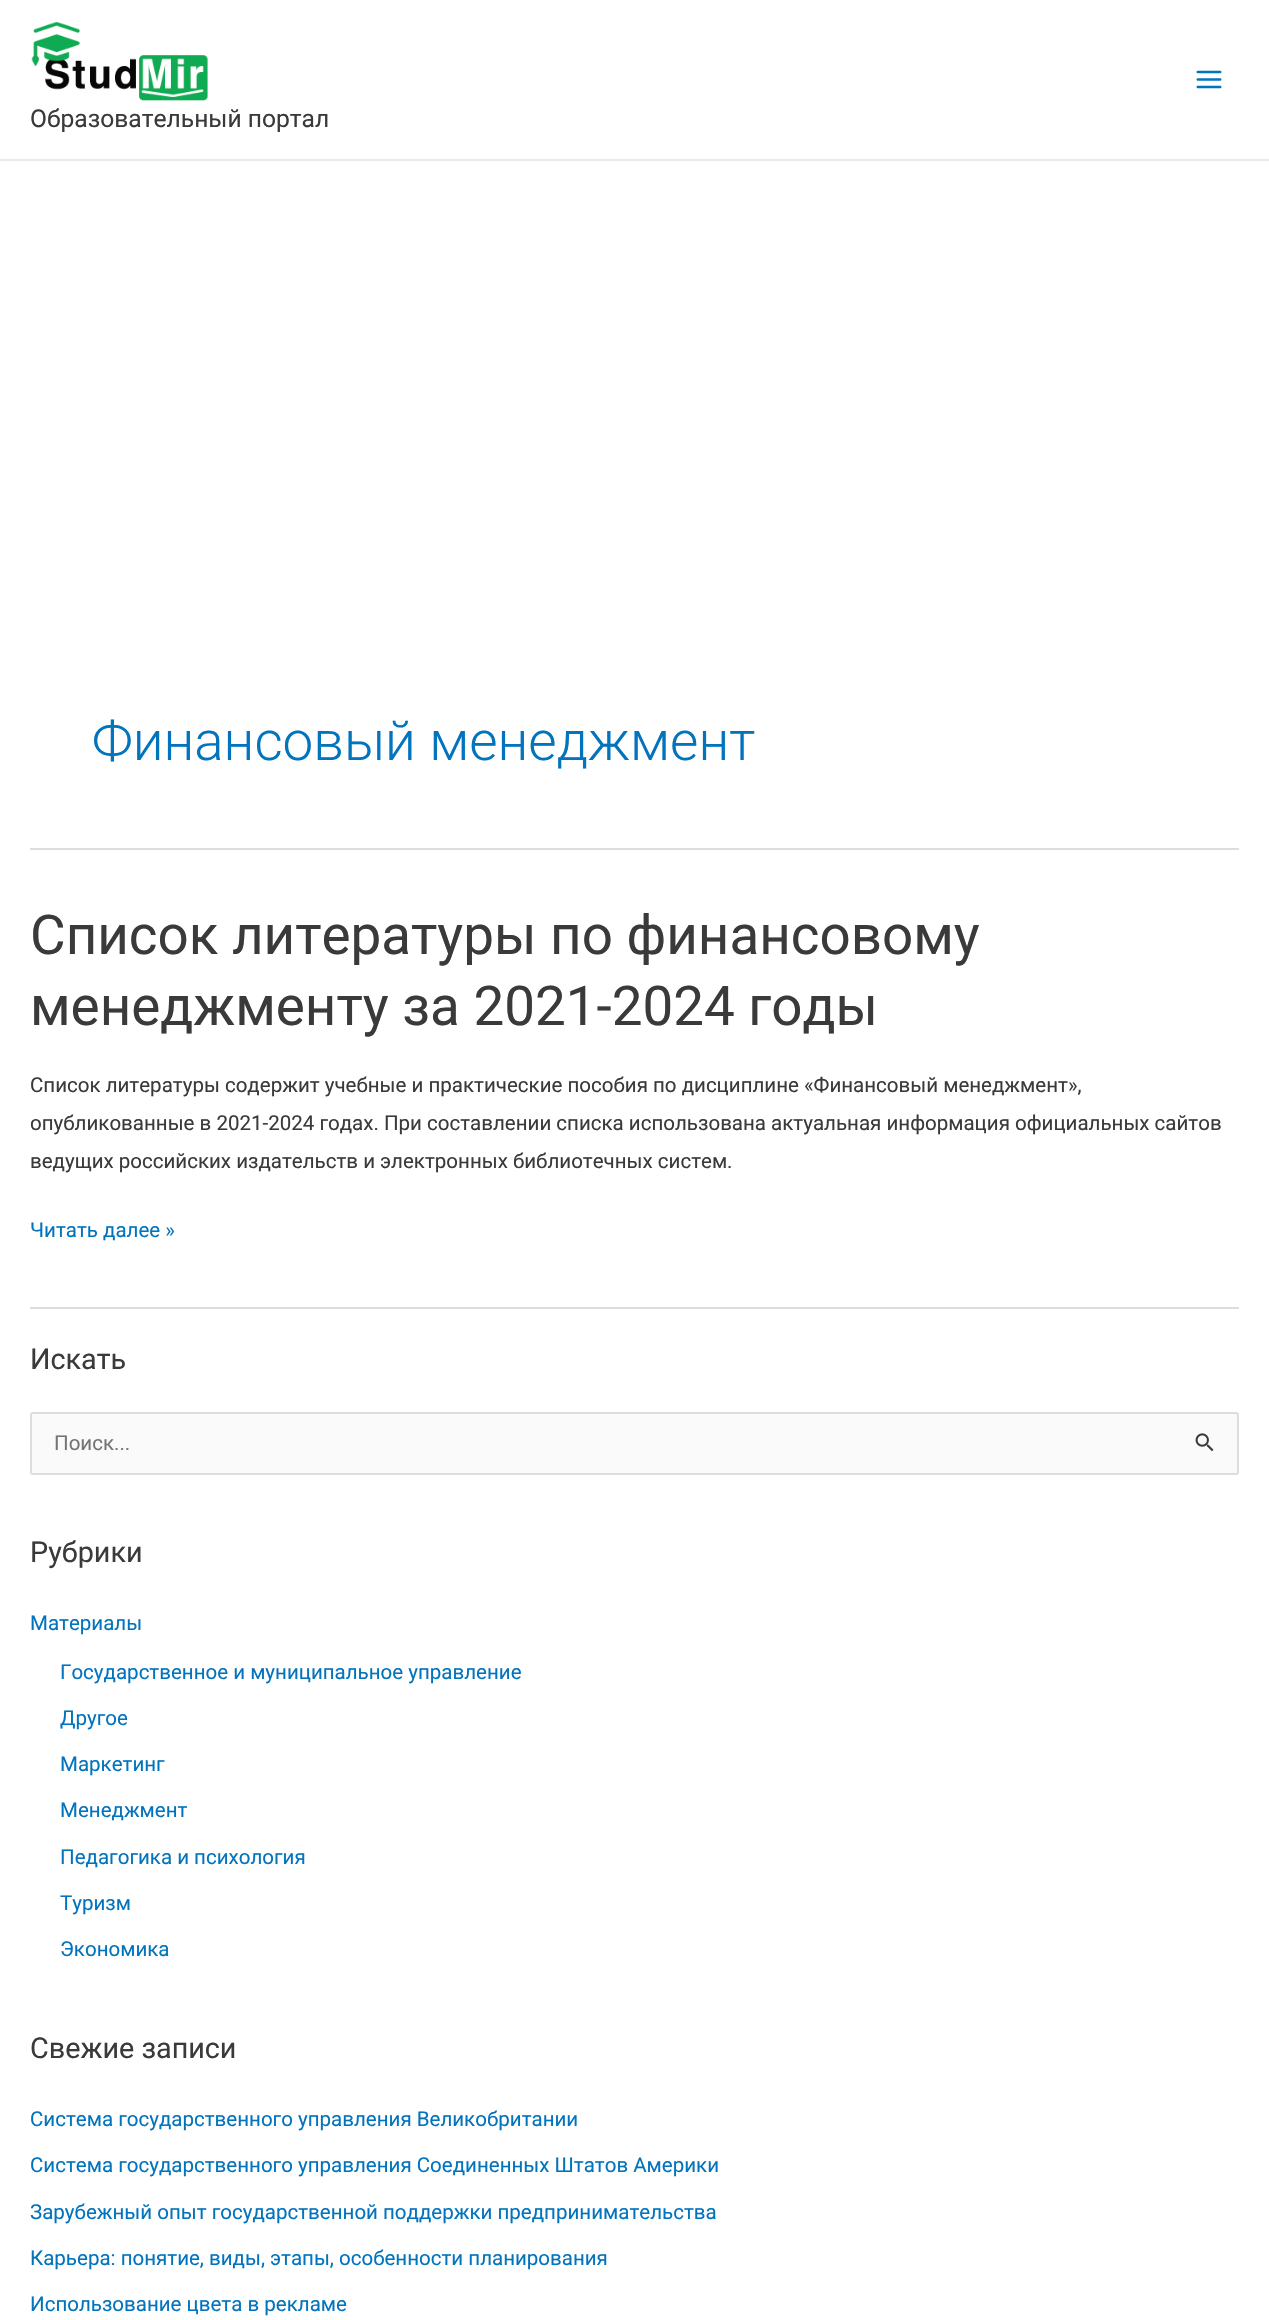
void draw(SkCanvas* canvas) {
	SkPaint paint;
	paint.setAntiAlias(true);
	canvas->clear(0xffffffff);
	paint.setColor(0xffeaeaea);
	canvas->drawRect(SkRect::MakeXYWH(0, 159, 1269, 2), paint);
	canvas->drawImageRect(SkImages::DeferredFromEncodedData(SkData::MakeFromFileName("img1.png")), SkRect::MakeXYWH(1196, 70, 26, 19), SkSamplingOptions());
	canvas->drawImageRect(SkImages::DeferredFromEncodedData(SkData::MakeFromFileName("img2.png")), SkRect::MakeXYWH(31, 21, 177, 80), SkSamplingOptions());
	SkFont f1(fontMgr->matchFamilyStyle("Roboto", SkFontStyle::Normal()), 24.6);
	f1.setSubpixel(true);
	paint.setColor(0xff3a3a3a);
	canvas->drawString("Образовательный портал", 30, 127, f1, paint);
	paint.setColor(0xffdddddd);
	canvas->drawRect(SkRect::MakeXYWH(30, 848, 1209, 2), paint);
	SkFont f2(fontMgr->matchFamilyStyle("Roboto", SkFontStyle(300, SkFontStyle::kNormal_Width, SkFontStyle::kUpright_Slant)), 54.75);
	f2.setSubpixel(true);
	paint.setColor(0xff0274be);
	canvas->drawString("Финансовый менеджмент", 92, 760, f2, paint);
	paint.setColor(0xffdddddd);
	canvas->drawRect(SkRect::MakeXYWH(30, 1307, 1209, 2), paint);
	SkFont f3(fontMgr->matchFamilyStyle("Roboto", SkFontStyle::Normal()), 54.75);
	f3.setSubpixel(true);
	paint.setColor(0xff3a3a3a);
	canvas->drawString("Список литературы по финансовому", 30, 954, f3, paint);
	canvas->drawString("менеджменту за 2021-2024 годы", 30, 1025, f3, paint);
	SkFont f4(fontMgr->matchFamilyStyle("Roboto", SkFontStyle::Normal()), 20.52);
	f4.setSubpixel(true);
	canvas->drawString("Список литературы содержит учебные и практические пособия по дисциплине «Финансовый менеджмент»,", 30, 1092, f4, paint);
	canvas->drawString("опубликованные в 2021-2024 годах. При составлении списка использована актуальная информация официальных сайтов", 30, 1130, f4, paint);
	canvas->drawString("ведущих российских издательств и электронных библиотечных систем.", 30, 1168, f4, paint);
	paint.setColor(0xff0274be);
	canvas->drawString("Читать далее »", 30, 1237, f4, paint);
	SkFont f5(fontMgr->matchFamilyStyle("Roboto", SkFontStyle::Normal()), 28.75);
	f5.setSubpixel(true);
	paint.setColor(0xff3a3a3a);
	canvas->drawString("Искать", 30, 1369, f5, paint);
	paint.setColor(0xfffafafa);
	canvas->drawRoundRect(SkRect::MakeXYWH(31, 1413, 1207, 61), 2, 2, paint);
	paint.setStroke(true);
	paint.setStrokeWidth(2);
	paint.setColor(0xffdddddd);
	canvas->drawRoundRect(SkRect::MakeXYWH(31, 1413, 1207, 61), 2, 2, paint);
	paint.setStroke(false);
	paint.setColor(0xff757575);
	canvas->drawString("Поиск...", 54, 1450, f4, paint);
	canvas->drawImageRect(SkImages::DeferredFromEncodedData(SkData::MakeFromFileName("img3.png")), SkRect::MakeXYWH(1195, 1433, 19, 19), SkSamplingOptions());
	paint.setColor(0xff3a3a3a);
	canvas->drawString("Рубрики", 30, 1562, f5, paint);
	paint.setColor(0xff0274be);
	canvas->drawString("Материалы", 30, 1630, f4, paint);
	canvas->drawString("Государственное и муниципальное управление", 60, 1679, f4, paint);
	canvas->drawString("Другое", 60, 1725, f4, paint);
	canvas->drawString("Маркетинг", 60, 1771, f4, paint);
	canvas->drawString("Менеджмент", 60, 1817, f4, paint);
	canvas->drawString("Педагогика и психология", 60, 1864, f4, paint);
	canvas->drawString("Туризм", 60, 1910, f4, paint);
	canvas->drawString("Экономика", 60, 1956, f4, paint);
	paint.setColor(0xff3a3a3a);
	canvas->drawString("Свежие записи", 30, 2058, f5, paint);
	paint.setColor(0xff0274be);
	canvas->drawString("Система государственного управления Великобритании", 30, 2126, f4, paint);
	canvas->drawString("Система государственного управления Соединенных Штатов Америки", 30, 2172, f4, paint);
	canvas->drawString("Зарубежный опыт государственной поддержки предпринимательства", 30, 2219, f4, paint);
	canvas->drawString("Карьера: понятие, виды, этапы, особенности планирования", 30, 2265, f4, paint);
	canvas->drawString("Использование цвета в рекламе", 30, 2311, f4, paint);
}
